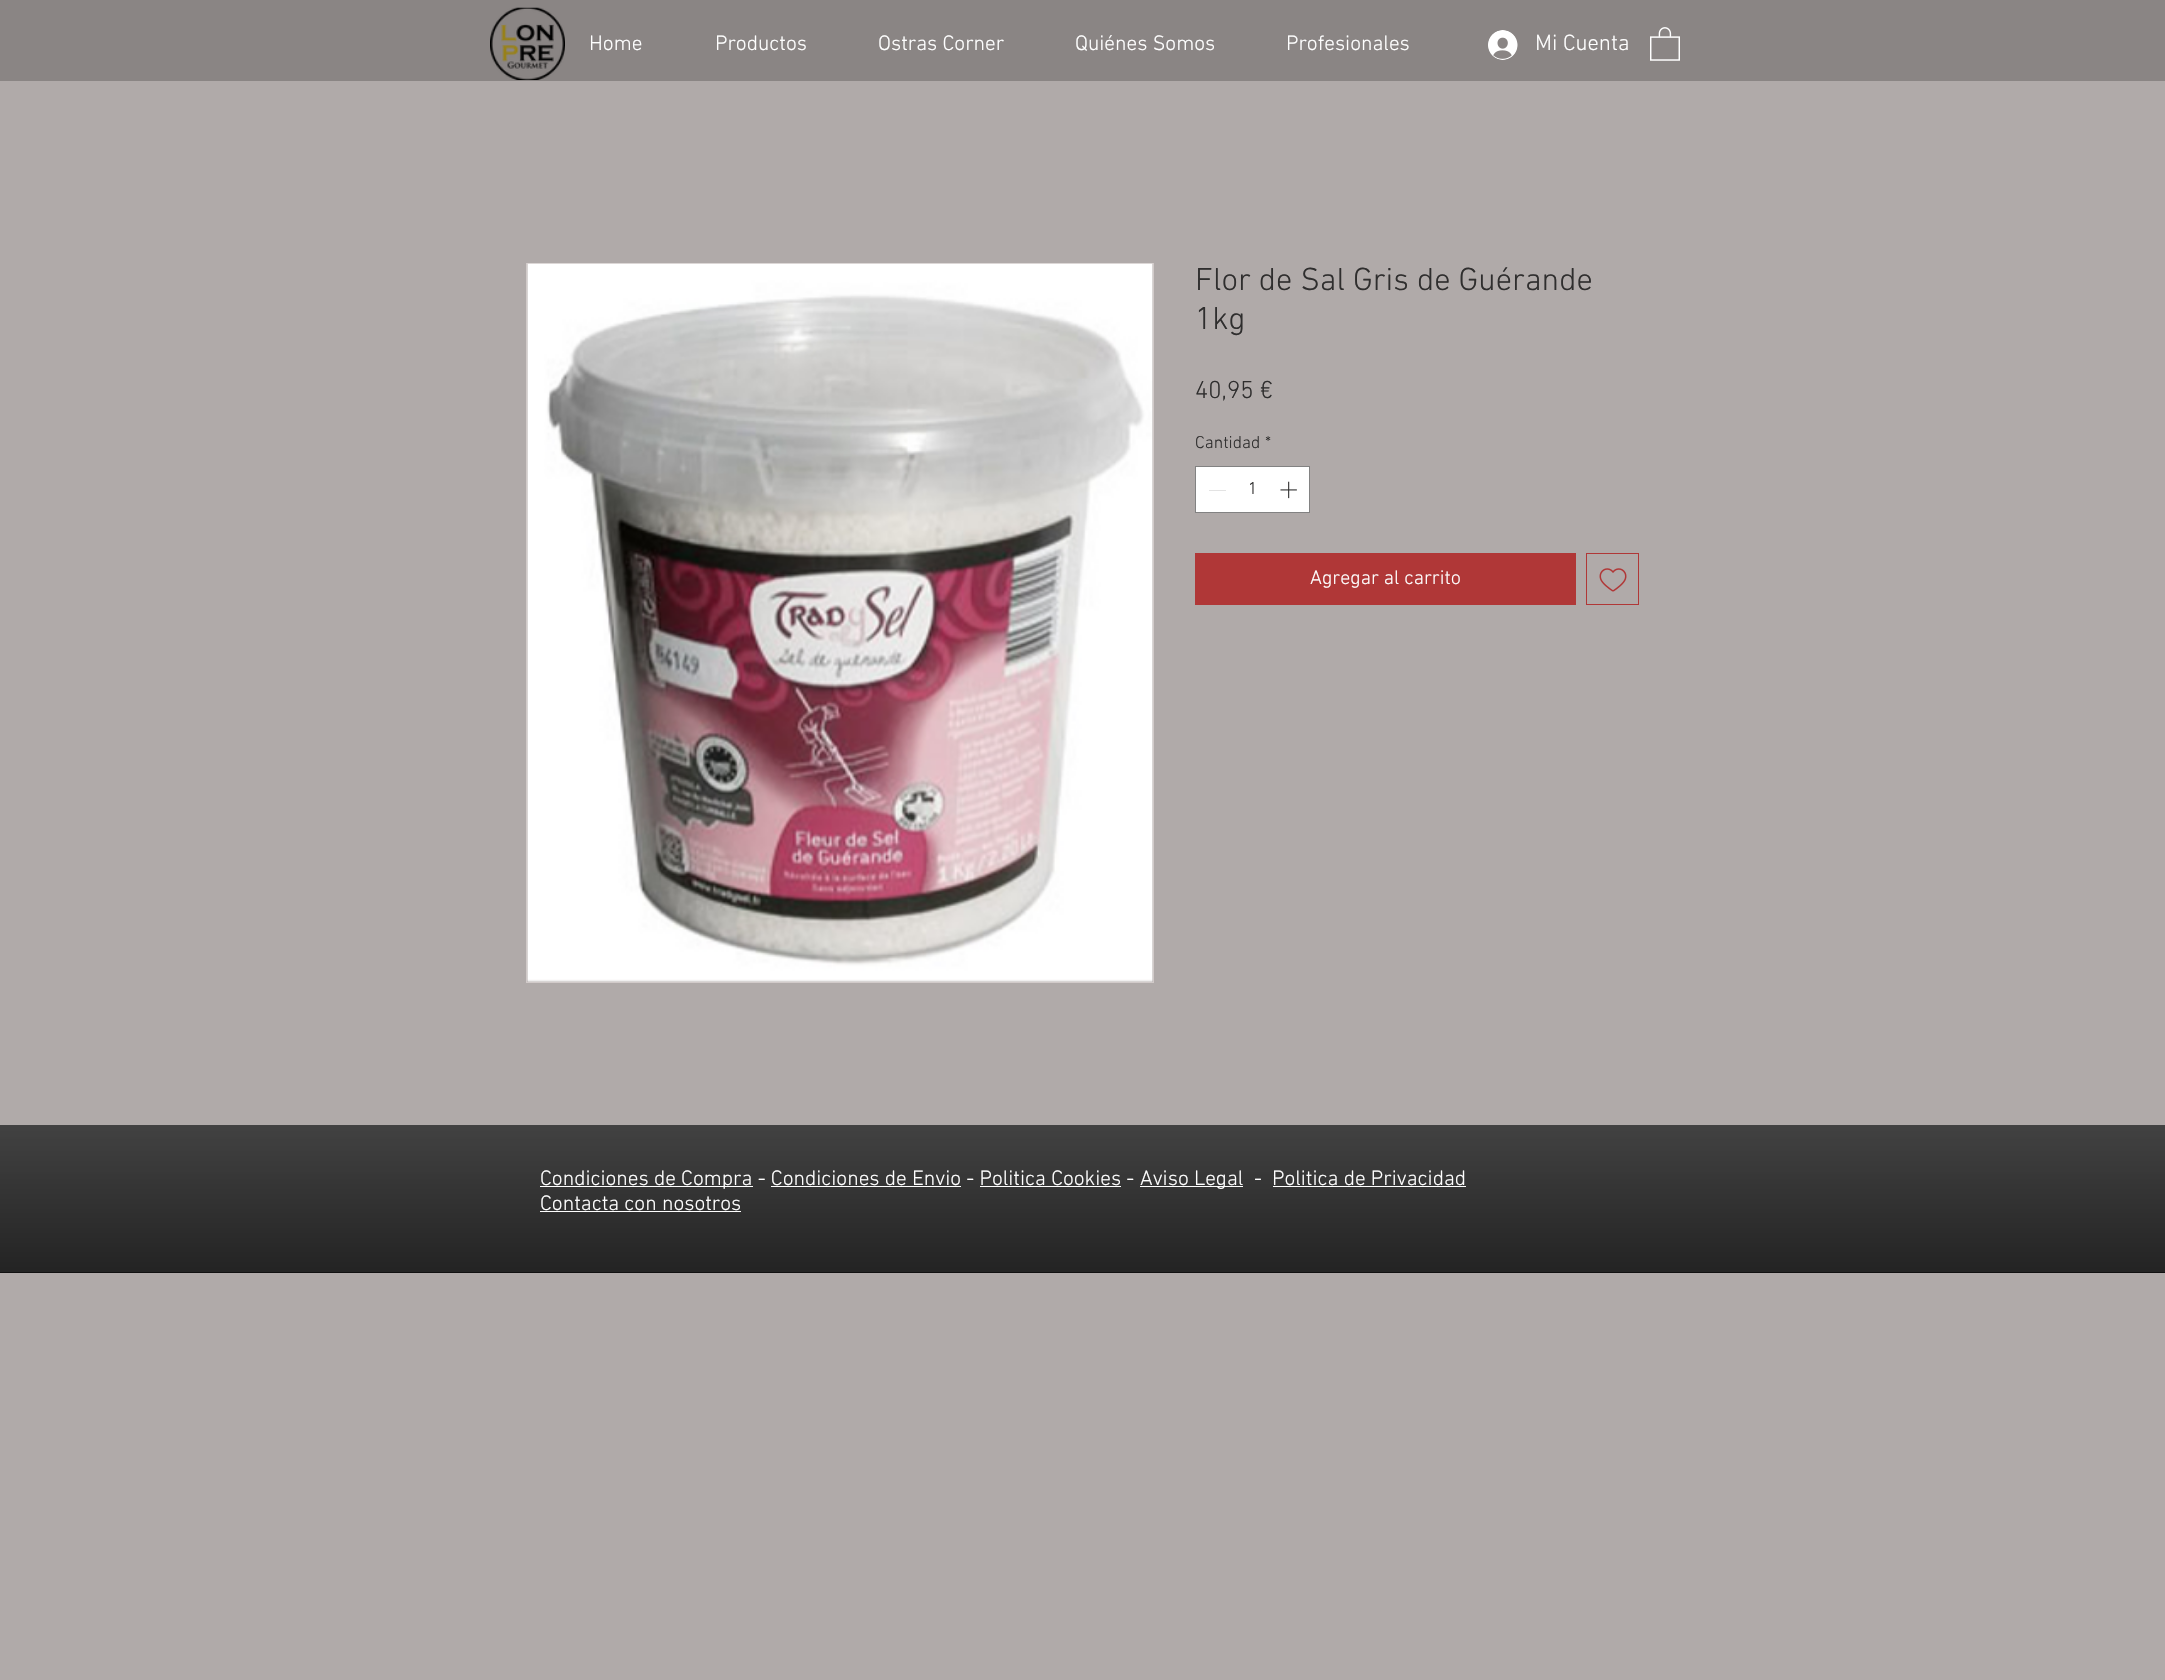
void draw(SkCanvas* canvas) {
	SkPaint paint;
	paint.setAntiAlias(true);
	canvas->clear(0xffb0aaa9);
	paint.setColor(0xff8a8584);
	canvas->drawRect(SkRect::MakeXYWH(0, 0, 2165, 81), paint);
	canvas->drawImageRect(SkImages::DeferredFromEncodedData(SkData::MakeFromFileName("img1.png")), SkRect::MakeXYWH(490, 7, 75, 73), SkSamplingOptions());
	SkFont f1(fontMgr->matchFamilyStyle("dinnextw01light", SkFontStyle(300, SkFontStyle::kNormal_Width, SkFontStyle::kUpright_Slant)), 21.25);
	f1.setSubpixel(true);
	paint.setColor(0xffffffff);
	canvas->drawString("Home", 589, 50, f1, paint);
	canvas->drawString("Productos", 715, 50, f1, paint);
	canvas->drawString("Ostras Corner", 878, 50, f1, paint);
	canvas->drawString("Quiénes Somos", 1075, 50, f1, paint);
	canvas->drawString("Profesionales", 1286, 50, f1, paint);
	canvas->drawImageRect(SkImages::DeferredFromEncodedData(SkData::MakeFromFileName("img2.png")), SkRect::MakeXYWH(1488, 30, 30, 30), SkSamplingOptions());
	SkFont f2(fontMgr->matchFamilyStyle("dinnextw01light", SkFontStyle(300, SkFontStyle::kNormal_Width, SkFontStyle::kUpright_Slant)), 22.5);
	f2.setSubpixel(true);
	canvas->drawString("Mi Cuenta", 1535, 50, f2, paint);
	canvas->drawImageRect(SkImages::DeferredFromEncodedData(SkData::MakeFromFileName("img3.png")), SkRect::MakeXYWH(1650, 27, 30, 34), SkSamplingOptions());
	paint.setStroke(true);
	paint.setStrokeWidth(1);
	paint.setColor(0xffd1cac9);
	canvas->drawRect(SkRect::MakeXYWH(526.5, 263.5, 627, 719), paint);
	canvas->drawImageRect(SkImages::DeferredFromEncodedData(SkData::MakeFromFileName("img4.png")), SkRect::MakeXYWH(527, 263, 626, 719), SkSamplingOptions());
	SkFont f3(fontMgr->matchFamilyStyle("dinnextw01light", SkFontStyle(300, SkFontStyle::kNormal_Width, SkFontStyle::kUpright_Slant)), 32.5);
	f3.setSubpixel(true);
	paint.setStroke(false);
	paint.setColor(0xff2f2e2e);
	canvas->drawString("Flor de Sal Gris de Guérande", 1195, 290, f3, paint);
	canvas->drawString("1kg", 1195, 329, f3, paint);
	SkFont f4(fontMgr->matchFamilyStyle("dinnextw01light", SkFontStyle(300, SkFontStyle::kNormal_Width, SkFontStyle::kUpright_Slant)), 25);
	f4.setSubpixel(true);
	canvas->drawString("40,95 €", 1195, 398, f4, paint);
	SkFont f5(fontMgr->matchFamilyStyle("dinnextw01light", SkFontStyle(300, SkFontStyle::kNormal_Width, SkFontStyle::kUpright_Slant)), 17.5);
	f5.setSubpixel(true);
	canvas->drawString("Cantidad", 1195, 448, f5, paint);
	canvas->drawString("*", 1265, 448, f5, paint);
	paint.setColor(0xffffffff);
	canvas->drawRect(SkRect::MakeXYWH(1195.5, 466.5, 114, 46), paint);
	paint.setStroke(true);
	paint.setColor(0xff828282);
	canvas->drawRect(SkRect::MakeXYWH(1195.5, 466.5, 114, 46), paint);
	paint.setStroke(false);
	paint.setColor(0xffe3e3e3);
	canvas->drawRect(SkRect::MakeXYWH(1209, 490, 17, 1), paint);
	paint.setColor(0xff2f2e2e);
	canvas->drawString("1", 1248, 494, f5, paint);
	canvas->drawImageRect(SkImages::DeferredFromEncodedData(SkData::MakeFromFileName("img5.png")), SkRect::MakeXYWH(1280, 481, 17, 18), SkSamplingOptions());
	paint.setColor(0xffb03737);
	canvas->drawRect(SkRect::MakeXYWH(1195, 553, 381, 52), paint);
	SkFont f6(fontMgr->matchFamilyStyle("dinnextw01light", SkFontStyle(300, SkFontStyle::kNormal_Width, SkFontStyle::kUpright_Slant)), 20);
	f6.setSubpixel(true);
	paint.setColor(0xffffffff);
	canvas->drawString("Agregar al carrito", 1310, 584, f6, paint);
	paint.setStroke(true);
	paint.setColor(0xffb03737);
	canvas->drawRect(SkRect::MakeXYWH(1586.5, 553.5, 52, 51), paint);
	canvas->drawImageRect(SkImages::DeferredFromEncodedData(SkData::MakeFromFileName("img6.png")), SkRect::MakeXYWH(1599, 568, 28, 24), SkSamplingOptions());
	paint.setStroke(false);
	paint.setColor(0xff000000);
	canvas->drawRect(SkRect::MakeXYWH(0, 1125, 2165, 148), paint);
	canvas->drawImageRect(SkImages::DeferredFromEncodedData(SkData::MakeFromFileName("img7.png")), SkRect::MakeXYWH(0, 1125, 2165, 148), SkSamplingOptions());
	paint.setColor(0xffffffff);
	canvas->drawRect(SkRect::MakeXYWH(540, 1186, 213, 1), paint);
	canvas->drawString("Condiciones de Compra - Condiciones de Envio - Politica Cookies -", 540, 1185, f1, paint);
	canvas->drawRect(SkRect::MakeXYWH(771, 1186, 190, 1), paint);
	canvas->drawRect(SkRect::MakeXYWH(980, 1186, 141, 1), paint);
	canvas->drawRect(SkRect::MakeXYWH(1140, 1186, 103, 1), paint);
	canvas->drawString("Aviso Legal", 1140, 1185, f1, paint);
	canvas->drawString("-", 1254, 1185, f1, paint);
	canvas->drawString("Politica de Privacidad", 1272, 1185, f1, paint);
	canvas->drawRect(SkRect::MakeXYWH(1273, 1186, 193, 1), paint);
	canvas->drawString("Contacta con nosotros", 540, 1210, f1, paint);
	canvas->drawRect(SkRect::MakeXYWH(540, 1211, 201, 1), paint);
}
